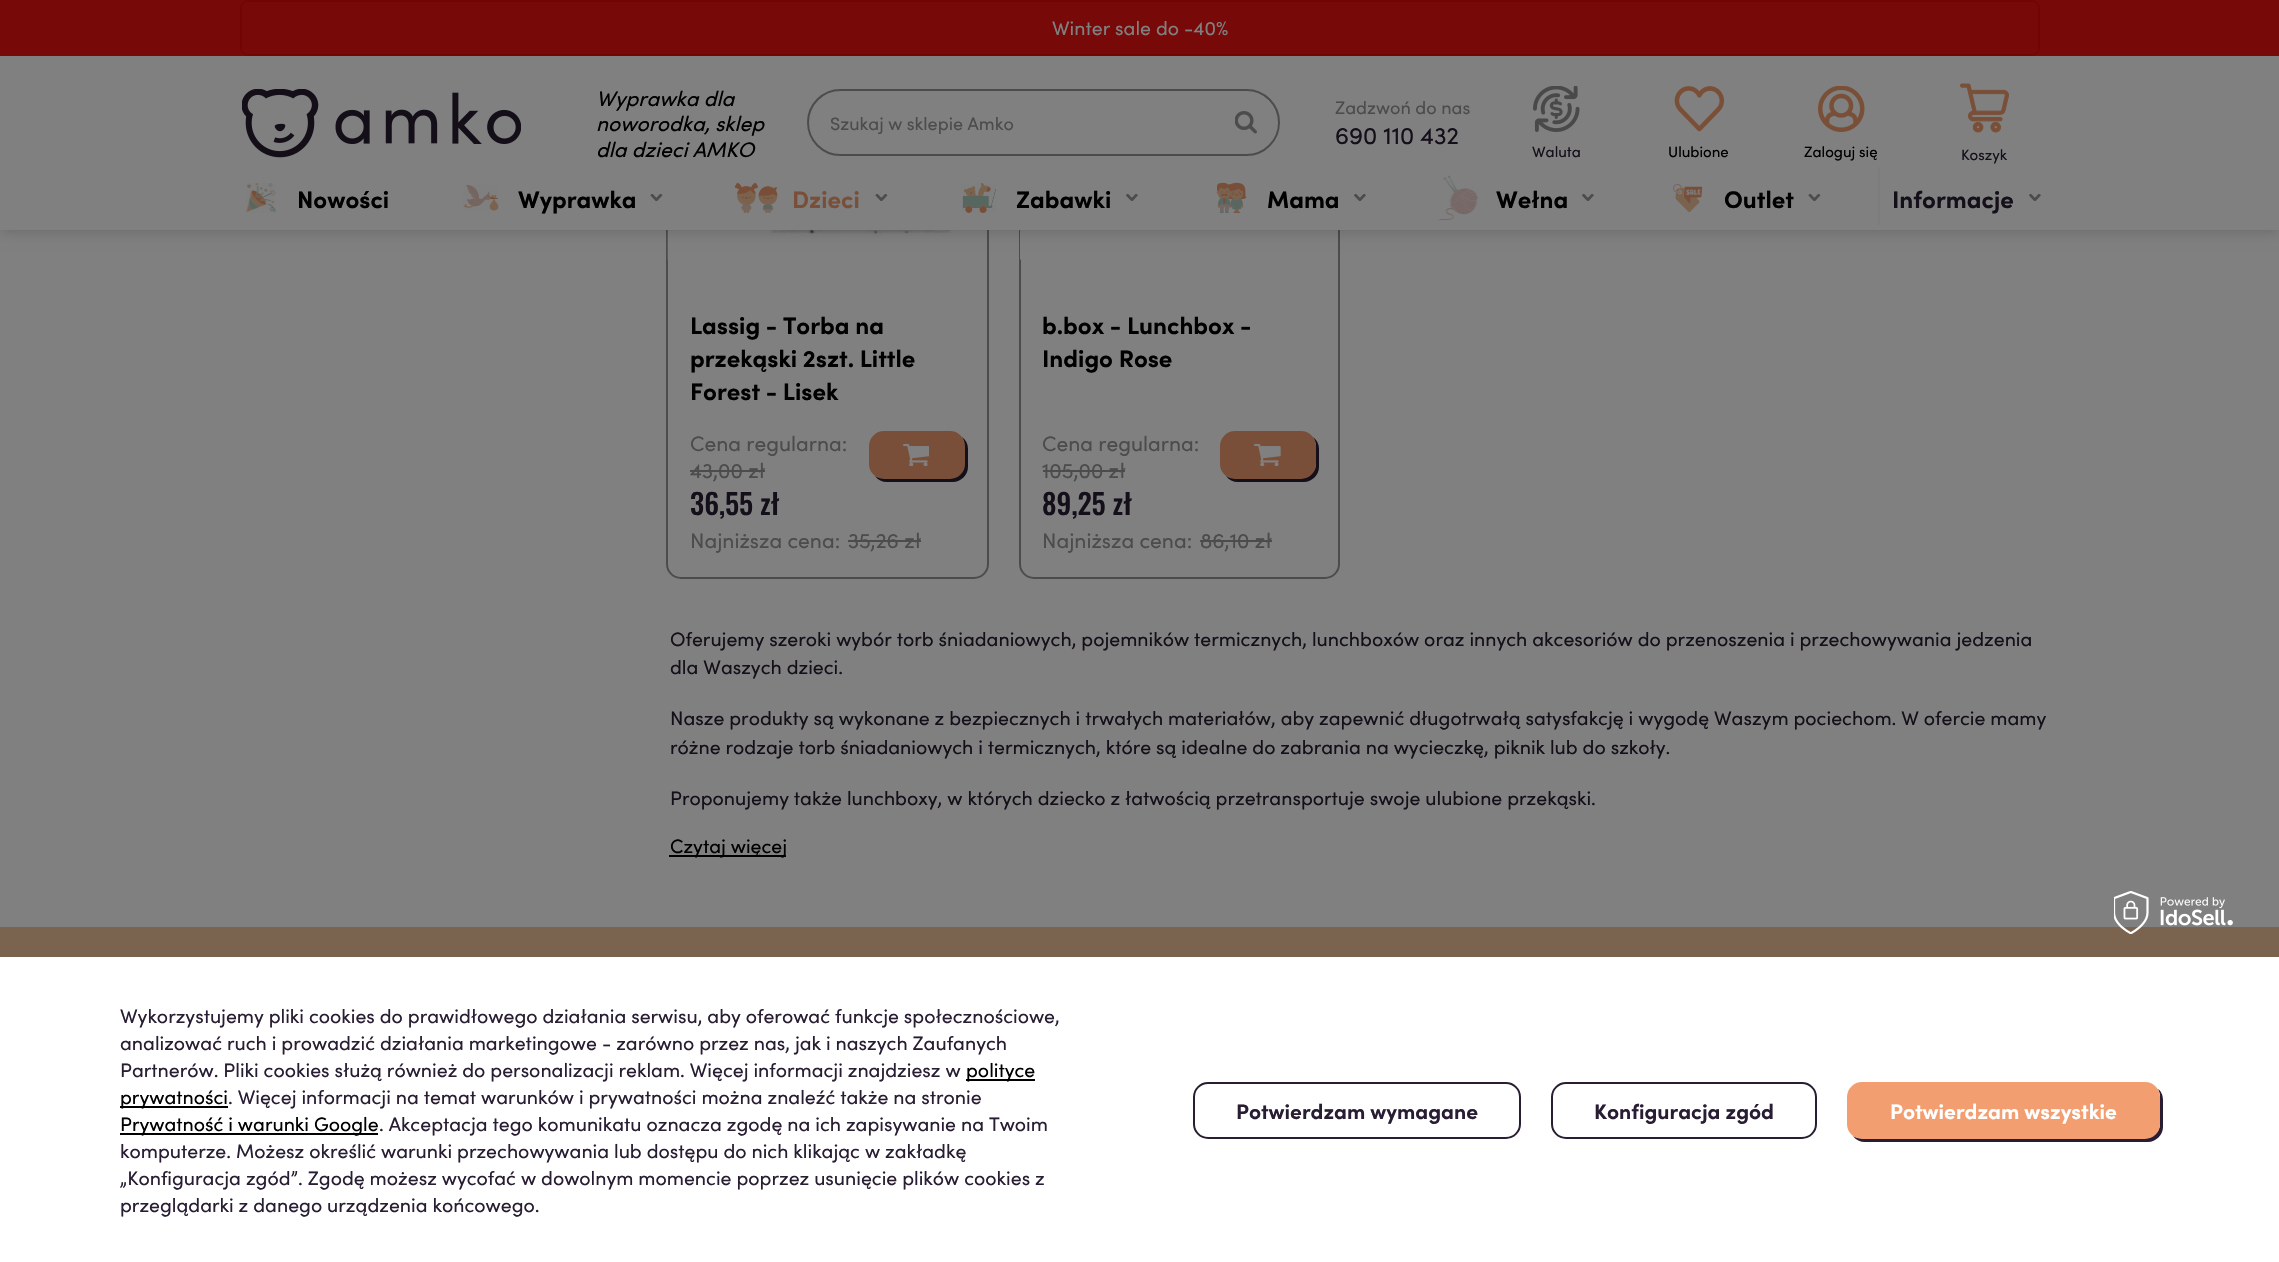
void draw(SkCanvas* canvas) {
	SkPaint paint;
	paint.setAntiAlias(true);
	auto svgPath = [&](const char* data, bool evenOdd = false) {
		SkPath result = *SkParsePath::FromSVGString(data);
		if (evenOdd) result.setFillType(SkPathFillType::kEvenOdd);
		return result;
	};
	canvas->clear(0xff808080);
	paint.setStroke(true);
	paint.setStrokeWidth(2);
	paint.setColor(0xff4c4c4c);
	canvas->drawRoundRect(SkRect::MakeXYWH(667, -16, 321, 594), 14, 14, paint);
	canvas->drawImageRect(SkImages::DeferredFromEncodedData(SkData::MakeFromFileName("img16.png")), SkRect::MakeXYWH(667, 230, 301, 30), SkSamplingOptions());
	canvas->drawRoundRect(SkRect::MakeXYWH(1020, -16, 319, 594), 14, 14, paint);
	canvas->drawImageRect(SkImages::DeferredFromEncodedData(SkData::MakeFromFileName("img18.png")), SkRect::MakeXYWH(1020, 230, 305, 30), SkSamplingOptions());
	paint.setStroke(false);
	paint.setColor(0x33000000);
	paint.setMaskFilter(SkMaskFilter::MakeBlur(kNormal_SkBlurStyle, 7.5));
	canvas->drawRect(SkRect::MakeXYWH(0, 0, 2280, 230), paint);
	paint.setMaskFilter(nullptr);
	paint.setColor(0xff808080);
	canvas->drawRect(SkRect::MakeXYWH(0, 56, 2279, 174), paint);
	paint.setColor(0xff770909);
	canvas->drawRect(SkRect::MakeXYWH(0, 0, 2279, 56), paint);
	paint.setStroke(true);
	paint.setColor(0xff740404);
	canvas->drawRoundRect(SkRect::MakeXYWH(241, 1, 1798, 54), 7, 7, paint);
	SkFont f1(fontMgr->matchFamilyStyle("Sofia", SkFontStyle::Normal()), 19.5);
	f1.setSubpixel(true);
	paint.setStroke(false);
	paint.setColor(0xff808080);
	canvas->drawString("Winter sale do -40%", 1052, 35, f1, paint);
	canvas->drawImageRect(SkImages::DeferredFromEncodedData(SkData::MakeFromFileName("img1.png")), SkRect::MakeXYWH(242, 89, 279, 69), SkSamplingOptions());
	SkFont f2(fontMgr->matchFamilyStyle("Sofia", SkFontStyle::Italic()), 21);
	f2.setSubpixel(true);
	paint.setColor(0xff000000);
	canvas->drawString("Wyprawka dla", 596, 106, f2, paint);
	canvas->drawString("noworodka, sklep", 596, 131, f2, paint);
	canvas->drawString("dla dzieci AMKO", 596, 157, f2, paint);
	paint.setStroke(true);
	paint.setColor(0xff4c4c4c);
	canvas->drawRoundRect(SkRect::MakeXYWH(808, 90, 471, 65), 32.5, 32.5, paint);
	SkFont f3(fontMgr->matchFamilyStyle("Sofia", SkFontStyle::Normal()), 18);
	f3.setSubpixel(true);
	paint.setStroke(false);
	canvas->drawString("Szukaj w sklepie Amko", 830, 130, f3, paint);
	canvas->drawImageRect(SkImages::DeferredFromEncodedData(SkData::MakeFromFileName("img2.png")), SkRect::MakeXYWH(1235, 111, 22, 23), SkSamplingOptions());
	canvas->drawString("Zadzwoń do nas", 1335, 114, f3, paint);
	SkFont f4(fontMgr->matchFamilyStyle("Sofia", SkFontStyle::Normal()), 24);
	f4.setSubpixel(true);
	paint.setColor(0xff150f1a);
	canvas->drawString("690 110 432", 1335, 144, f4, paint);
	canvas->drawImageRect(SkImages::DeferredFromEncodedData(SkData::MakeFromFileName("img3.png")), SkRect::MakeXYWH(1533, 86, 47, 46), SkSamplingOptions());
	SkFont f5(fontMgr->matchFamilyStyle("Sofia", SkFontStyle::Normal()), 15);
	f5.setSubpixel(true);
	canvas->drawString("Waluta", 1532, 157, f5, paint);
	canvas->drawImageRect(SkImages::DeferredFromEncodedData(SkData::MakeFromFileName("img4.png")), SkRect::MakeXYWH(1674, 86, 50, 46), SkSamplingOptions());
	paint.setColor(0xff000000);
	canvas->drawString("Ulubione", 1668, 157, f5, paint);
	canvas->drawImageRect(SkImages::DeferredFromEncodedData(SkData::MakeFromFileName("img5.png")), SkRect::MakeXYWH(1818, 86, 47, 46), SkSamplingOptions());
	canvas->drawString("Zaloguj się", 1804, 157, f5, paint);
	canvas->drawImageRect(SkImages::DeferredFromEncodedData(SkData::MakeFromFileName("img6.png")), SkRect::MakeXYWH(1960, 83, 49, 50), SkSamplingOptions());
	paint.setColor(0xff150f1a);
	canvas->drawString("Koszyk", 1961, 160, f5, paint);
	canvas->drawImageRect(SkImages::DeferredFromEncodedData(SkData::MakeFromFileName("img7.png")), SkRect::MakeXYWH(246, 183, 30, 30), SkSamplingOptions());
	SkFont f6(fontMgr->matchFamilyStyle("Sofia", SkFontStyle::Bold()), 24);
	f6.setSubpixel(true);
	paint.setColor(0xff000000);
	canvas->drawString("Nowości", 297, 208, f6, paint);
	canvas->drawImageRect(SkImages::DeferredFromEncodedData(SkData::MakeFromFileName("img8.png")), SkRect::MakeXYWH(463, 185, 36, 26), SkSamplingOptions());
	canvas->drawString("Wyprawka", 518, 208, f6, paint);
	canvas->drawImageRect(SkImages::DeferredFromEncodedData(SkData::MakeFromFileName("img9.png")), SkRect::MakeXYWH(650, 194, 13, 7), SkSamplingOptions());
	canvas->drawImageRect(SkImages::DeferredFromEncodedData(SkData::MakeFromFileName("img10.png")), SkRect::MakeXYWH(734, 182, 44, 31), SkSamplingOptions());
	paint.setColor(0xff794f39);
	canvas->drawString("Dzieci", 792, 208, f6, paint);
	canvas->drawImageRect(SkImages::DeferredFromEncodedData(SkData::MakeFromFileName("img9.png")), SkRect::MakeXYWH(875, 194, 13, 7), SkSamplingOptions());
	canvas->drawImageRect(SkImages::DeferredFromEncodedData(SkData::MakeFromFileName("img11.png")), SkRect::MakeXYWH(962, 183, 34, 30), SkSamplingOptions());
	paint.setColor(0xff000000);
	canvas->drawString("Zabawki", 1016, 208, f6, paint);
	canvas->drawImageRect(SkImages::DeferredFromEncodedData(SkData::MakeFromFileName("img12.png")), SkRect::MakeXYWH(1126, 194, 12, 7), SkSamplingOptions());
	canvas->drawImageRect(SkImages::DeferredFromEncodedData(SkData::MakeFromFileName("img13.png")), SkRect::MakeXYWH(1216, 182, 31, 31), SkSamplingOptions());
	canvas->drawString("Mama", 1267, 208, f6, paint);
	canvas->drawImageRect(SkImages::DeferredFromEncodedData(SkData::MakeFromFileName("img12.png")), SkRect::MakeXYWH(1354, 194, 12, 7), SkSamplingOptions());
	canvas->drawImageRect(SkImages::DeferredFromEncodedData(SkData::MakeFromFileName("img14.png")), SkRect::MakeXYWH(1438, 175, 40, 46), SkSamplingOptions());
	canvas->drawString("Wełna", 1496, 208, f6, paint);
	canvas->drawImageRect(SkImages::DeferredFromEncodedData(SkData::MakeFromFileName("img12.png")), SkRect::MakeXYWH(1582, 194, 12, 7), SkSamplingOptions());
	canvas->drawImageRect(SkImages::DeferredFromEncodedData(SkData::MakeFromFileName("img15.png")), SkRect::MakeXYWH(1673, 184, 30, 29), SkSamplingOptions());
	canvas->drawString("Outlet", 1724, 208, f6, paint);
	canvas->drawImageRect(SkImages::DeferredFromEncodedData(SkData::MakeFromFileName("img9.png")), SkRect::MakeXYWH(1808, 194, 13, 7), SkSamplingOptions());
	paint.setColor(0xff7c7c7c);
	canvas->drawRect(SkRect::MakeXYWH(1878, 167, 2, 58), paint);
	paint.setColor(0xff150f1a);
	canvas->drawString("Informacje", 1892, 208, f6, paint);
	canvas->drawImageRect(SkImages::DeferredFromEncodedData(SkData::MakeFromFileName("img12.png")), SkRect::MakeXYWH(2029, 194, 12, 7), SkSamplingOptions());
	paint.setColor(0xff000000);
	canvas->drawString("Lassig - Torba na", 690, 334, f6, paint);
	canvas->drawString("przekąski 2szt. Little", 690, 367, f6, paint);
	canvas->drawString("Forest - Lisek", 690, 400, f6, paint);
	SkFont f7(fontMgr->matchFamilyStyle("Sofia", SkFontStyle::Normal()), 21);
	f7.setSubpixel(true);
	paint.setColor(0xff4c4c4c);
	canvas->drawString("Cena regularna:", 690, 451, f7, paint);
	canvas->drawString("43,00 zł", 690, 478, f7, paint);
	canvas->drawRect(SkRect::MakeXYWH(690, 470, 75, 2), paint);
	SkFont f8(fontMgr->matchFamilyStyle("Oswald", SkFontStyle(500, SkFontStyle::kNormal_Width, SkFontStyle::kUpright_Slant)), 28.5);
	f8.setSubpixel(true);
	paint.setColor(0xff150f1a);
	canvas->drawString("36,55 zł", 690, 515, f8, paint);
	canvas->drawPath(svgPath("M875 476C878 480 882 482 887 482H953C961 482 968 475 968 467V449C968 444 966 440 962 437C963 439 964 442 964 446V464C964 472 958 478 950 478H884C880 478 877 477 875 476Z"), paint);
	paint.setColor(0xff794f39);
	canvas->drawRoundRect(SkRect::MakeXYWH(870, 432, 94, 46), 14, 14, paint);
	paint.setStroke(true);
	canvas->drawRoundRect(SkRect::MakeXYWH(870, 432, 94, 46), 14, 14, paint);
	canvas->drawImageRect(SkImages::DeferredFromEncodedData(SkData::MakeFromFileName("img17.png")), SkRect::MakeXYWH(903, 444, 26, 22), SkSamplingOptions());
	paint.setStroke(false);
	paint.setColor(0xff4c4c4c);
	canvas->drawString("Najniższa cena:", 690, 548, f7, paint);
	canvas->drawString("35,26 zł", 848, 548, f7, paint);
	canvas->drawRect(SkRect::MakeXYWH(848, 540, 73, 2), paint);
	paint.setColor(0xff000000);
	canvas->drawString("b.box - Lunchbox -", 1042, 334, f6, paint);
	canvas->drawString("Indigo Rose", 1042, 367, f6, paint);
	paint.setColor(0xff4c4c4c);
	canvas->drawString("Cena regularna:", 1042, 451, f7, paint);
	canvas->drawString("105,00 zł", 1042, 478, f7, paint);
	canvas->drawRect(SkRect::MakeXYWH(1043, 470, 82, 2), paint);
	paint.setColor(0xff150f1a);
	canvas->drawString("89,25 zł", 1042, 515, f8, paint);
	canvas->drawPath(svgPath("M1226 476C1229 480 1233 482 1238 482H1304C1312 482 1319 475 1319 467V449C1319 444 1317 440 1313 437C1314 439 1316 442 1316 446V464C1316 472 1309 478 1300 478H1234C1231 478 1228 477 1226 476Z"), paint);
	paint.setColor(0xff794f39);
	canvas->drawRoundRect(SkRect::MakeXYWH(1221, 432, 94, 46), 14, 14, paint);
	paint.setStroke(true);
	canvas->drawRoundRect(SkRect::MakeXYWH(1221, 432, 94, 46), 14, 14, paint);
	canvas->drawImageRect(SkImages::DeferredFromEncodedData(SkData::MakeFromFileName("img19.png")), SkRect::MakeXYWH(1254, 444, 27, 22), SkSamplingOptions());
	paint.setStroke(false);
	paint.setColor(0xff4c4c4c);
	canvas->drawString("Najniższa cena:", 1042, 548, f7, paint);
	canvas->drawString("86,10 zł", 1200, 548, f7, paint);
	canvas->drawRect(SkRect::MakeXYWH(1200, 540, 72, 2), paint);
	paint.setColor(0xff150f1a);
	canvas->drawString("Oferujemy szeroki wybór torb śniadaniowych, pojemników termicznych, lunchboxów oraz innych akcesoriów do przenoszenia i przechowywania jedzenia", 670, 646, f1, paint);
	canvas->drawString("dla Waszych dzieci.", 670, 674, f1, paint);
	canvas->drawString("Nasze produkty są wykonane z bezpiecznych i trwałych materiałów, aby zapewnić długotrwałą satysfakcję i wygodę Waszym pociechom. W ofercie mamy", 670, 725, f1, paint);
	canvas->drawString("różne rodzaje torb śniadaniowych i termicznych, które są idealne do zabrania na wycieczkę, piknik lub do szkoły.", 670, 754, f1, paint);
	canvas->drawString("Proponujemy także lunchboxy, w których dziecko z łatwością przetransportuje swoje ulubione przekąski.", 670, 805, f1, paint);
	paint.setColor(0xff000000);
	canvas->drawRect(SkRect::MakeXYWH(669, 855, 117, 2), paint);
	canvas->drawString("Czytaj więcej", 670, 853, f1, paint);
	paint.setColor(0xff7a634f);
	canvas->drawRect(SkRect::MakeXYWH(0, 927, 2279, 30), paint);
	paint.setColor(0xffffffff);
	canvas->drawRect(SkRect::MakeXYWH(0, 957, 2279, 305), paint);
	canvas->drawImageRect(SkImages::DeferredFromEncodedData(SkData::MakeFromFileName("img20.png")), SkRect::MakeXYWH(2114, 891, 119, 43), SkSamplingOptions());
	paint.setColor(0xff291d33);
	canvas->drawString("Wykorzystujemy pliki cookies do prawidłowego działania serwisu, aby oferować funkcje społecznościowe,", 120, 1023, f1, paint);
	canvas->drawString("analizować ruch i prowadzić działania marketingowe - zarówno przez nas, jak i naszych Zaufanych", 120, 1050, f1, paint);
	canvas->drawString("Partnerów. Pliki cookies służą również do personalizacji reklam. Więcej informacji znajdziesz w", 120, 1077, f1, paint);
	paint.setColor(0xff000000);
	canvas->drawRect(SkRect::MakeXYWH(966, 1079, 69, 2), paint);
	canvas->drawString("polityce", 966, 1077, f1, paint);
	canvas->drawRect(SkRect::MakeXYWH(120, 1106, 108, 2), paint);
	canvas->drawString("prywatności", 120, 1104, f1, paint);
	paint.setColor(0xff291d33);
	canvas->drawString(". Więcej informacji na temat warunków i prywatności można znaleźć także na stronie", 228, 1104, f1, paint);
	paint.setColor(0xff000000);
	canvas->drawRect(SkRect::MakeXYWH(120, 1133, 258, 2), paint);
	canvas->drawString("Prywatność i warunki Google", 120, 1131, f1, paint);
	paint.setColor(0xff291d33);
	canvas->drawString(". Akceptacja tego komunikatu oznacza zgodę na ich zapisywanie na Twoim", 379, 1131, f1, paint);
	canvas->drawString("komputerze. Możesz określić warunki przechowywania lub dostępu do nich klikając w zakładkę", 120, 1158, f1, paint);
	canvas->drawString("„Konfiguracja zgód”. Zgodę możesz wycofać w dowolnym momencie poprzez usunięcie plików cookies z", 120, 1185, f1, paint);
	canvas->drawString("przeglądarki z danego urządzenia końcowego.", 120, 1212, f1, paint);
	paint.setStroke(true);
	canvas->drawRoundRect(SkRect::MakeXYWH(1194, 1083, 326, 55), 14, 14, paint);
	SkFont f9(fontMgr->matchFamilyStyle("Sofia", SkFontStyle::Bold()), 21);
	f9.setSubpixel(true);
	paint.setStroke(false);
	canvas->drawString("Potwierdzam wymagane", 1236, 1119, f9, paint);
	paint.setStroke(true);
	canvas->drawRoundRect(SkRect::MakeXYWH(1552, 1083, 264, 55), 14, 14, paint);
	paint.setStroke(false);
	canvas->drawString("Konfiguracja zgód", 1594, 1119, f9, paint);
	canvas->drawPath(svgPath("M1853 1136C1856 1140 1860 1142 1865 1142H2148C2156 1142 2163 1135 2163 1127V1100C2163 1095 2161 1091 2158 1089C2159 1091 2160 1094 2160 1096V1124C2160 1132 2153 1138 2145 1138H1862C1858 1138 1855 1137 1853 1136Z"), paint);
	paint.setColor(0xfff29e71);
	canvas->drawRoundRect(SkRect::MakeXYWH(1848, 1083, 311, 55), 14, 14, paint);
	paint.setStroke(true);
	canvas->drawRoundRect(SkRect::MakeXYWH(1848, 1083, 311, 55), 14, 14, paint);
	paint.setStroke(false);
	paint.setColor(0xffffffff);
	canvas->drawString("Potwierdzam wszystkie", 1890, 1119, f9, paint);
}
